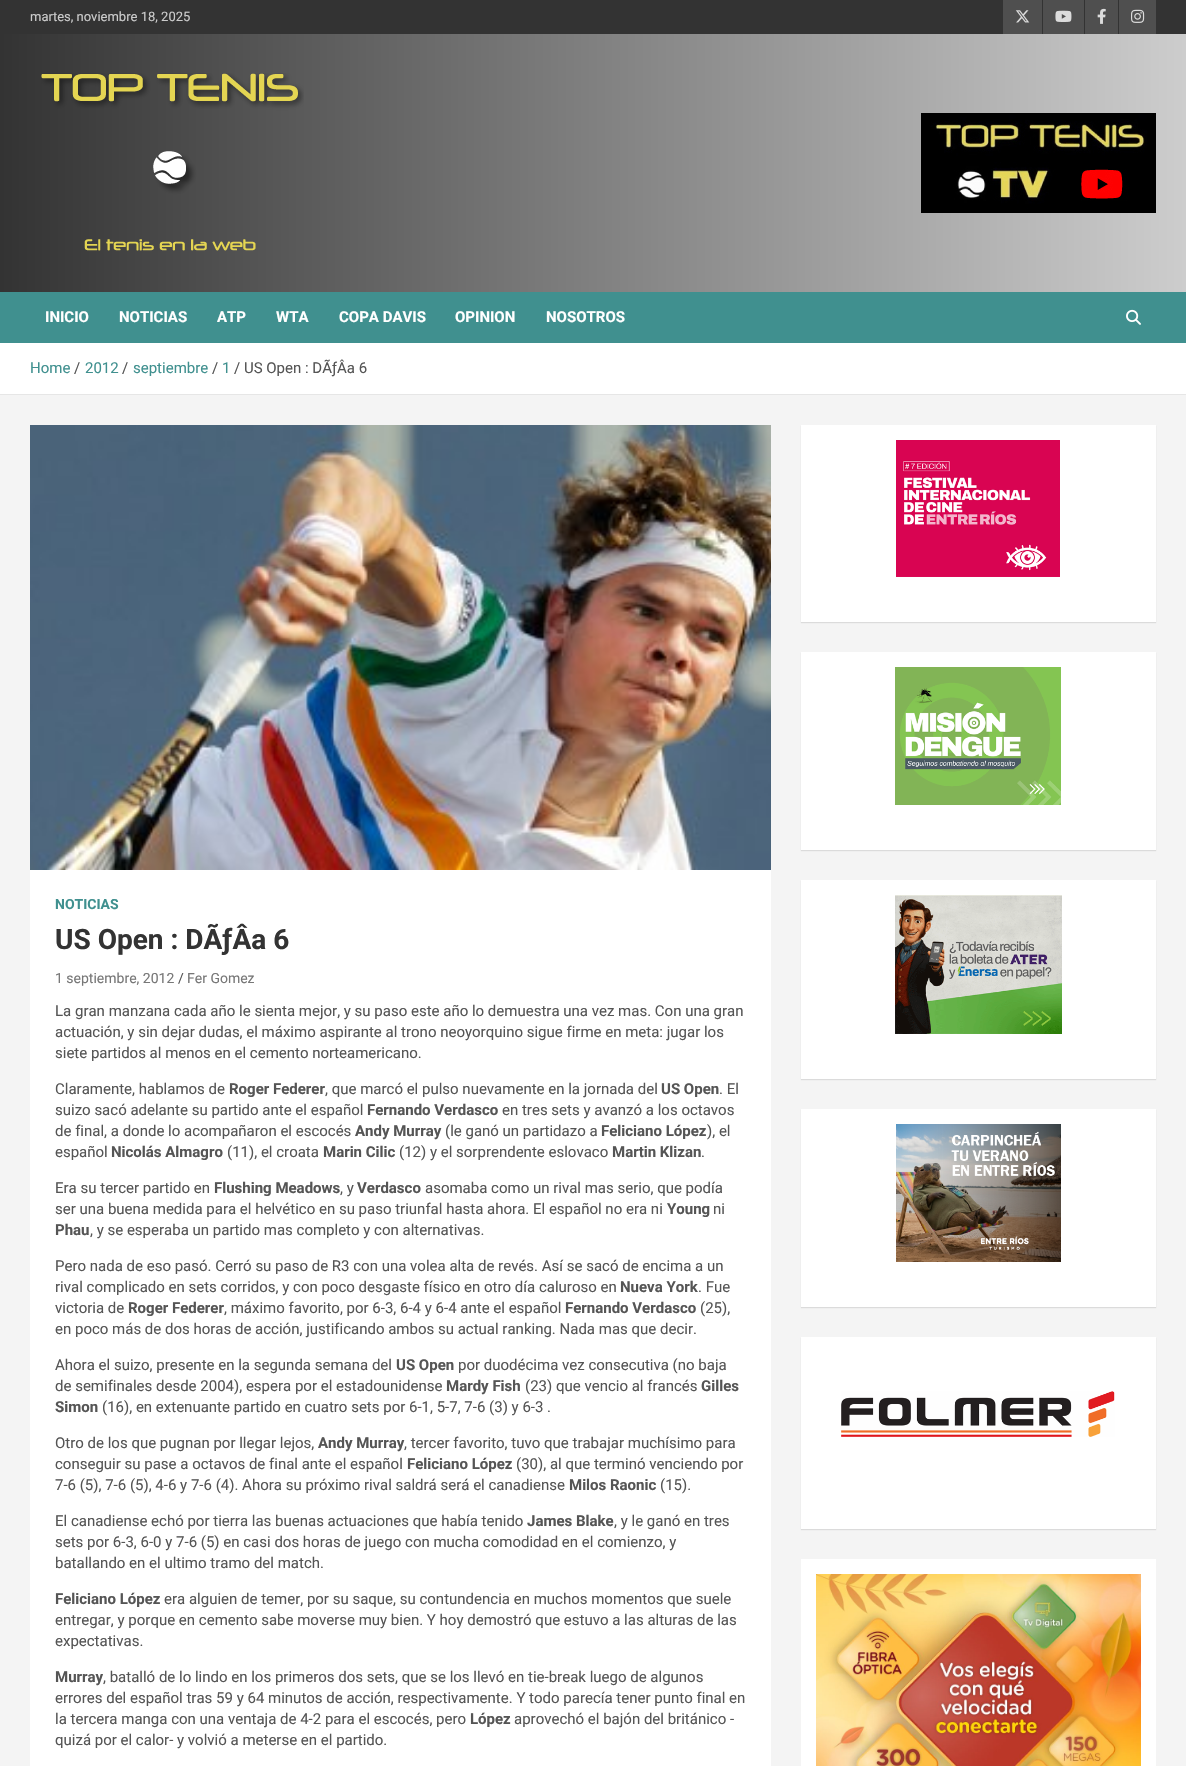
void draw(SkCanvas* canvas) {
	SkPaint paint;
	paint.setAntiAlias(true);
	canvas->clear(0xfff4f4f4);
	paint.setColor(0xff333333);
	canvas->drawRect(SkRect::MakeXYWH(0, 0, 1186, 34), paint);
	SkFont f1(fontMgr->matchFamilyStyle("Roboto", SkFontStyle::Normal()), 13);
	f1.setSubpixel(true);
	paint.setColor(0xffcccccc);
	canvas->drawString("martes, noviembre 18, 2025", 30, 21, f1, paint);
	paint.setColor(0xff4f4f4f);
	canvas->drawRect(SkRect::MakeXYWH(1003, 0, 39, 34), paint);
	canvas->drawImageRect(SkImages::DeferredFromEncodedData(SkData::MakeFromFileName("img1.png")), SkRect::MakeXYWH(1015, 10, 15, 13), SkSamplingOptions());
	canvas->drawRect(SkRect::MakeXYWH(1043, 0, 41, 34), paint);
	canvas->drawImageRect(SkImages::DeferredFromEncodedData(SkData::MakeFromFileName("img2.png")), SkRect::MakeXYWH(1055, 10, 17, 12), SkSamplingOptions());
	canvas->drawRect(SkRect::MakeXYWH(1085, 0, 33, 34), paint);
	canvas->drawImageRect(SkImages::DeferredFromEncodedData(SkData::MakeFromFileName("img3.png")), SkRect::MakeXYWH(1097, 8, 9, 16), SkSamplingOptions());
	canvas->drawRect(SkRect::MakeXYWH(1119, 0, 37, 34), paint);
	canvas->drawImageRect(SkImages::DeferredFromEncodedData(SkData::MakeFromFileName("img4.png")), SkRect::MakeXYWH(1131, 9, 14, 14), SkSamplingOptions());
	{
		const SkColor colors[] = {0xff333333, 0xffcdcdcd};
		const float stops[] = {0, 1};
		const SkPoint ends[] = {{0, 163}, {1186, 163}};
		paint.setShader(SkGradientShader::MakeLinear(ends, colors, stops, 2, SkTileMode::kClamp));
		paint.setAlpha(255);
	}
	canvas->drawRect(SkRect::MakeXYWH(0, 34, 1186, 258), paint);
	canvas->drawImageRect(SkImages::DeferredFromEncodedData(SkData::MakeFromFileName("img5.png")), SkRect::MakeXYWH(41, 73, 263, 178), SkSamplingOptions());
	canvas->drawImageRect(SkImages::DeferredFromEncodedData(SkData::MakeFromFileName("img6.png")), SkRect::MakeXYWH(921, 113, 235, 100), SkSamplingOptions());
	paint.setShader(nullptr);
	paint.setColor(0xff40908f);
	canvas->drawRect(SkRect::MakeXYWH(0, 292, 1186, 51), paint);
	SkFont f2(fontMgr->matchFamilyStyle("Roboto", SkFontStyle::Bold()), 15);
	f2.setSubpixel(true);
	paint.setColor(0xffffffff);
	canvas->drawString("INICIO", 45, 322, f2, paint);
	canvas->drawString("NOTICIAS", 119, 322, f2, paint);
	canvas->drawString("ATP", 217, 322, f2, paint);
	canvas->drawString("WTA", 276, 322, f2, paint);
	canvas->drawString("COPA DAVIS", 339, 322, f2, paint);
	canvas->drawString("OPINION", 455, 322, f2, paint);
	canvas->drawString("NOSOTROS", 546, 322, f2, paint);
	canvas->drawImageRect(SkImages::DeferredFromEncodedData(SkData::MakeFromFileName("img7.png")), SkRect::MakeXYWH(1126, 309, 15, 16), SkSamplingOptions());
	canvas->drawRect(SkRect::MakeXYWH(0, 343, 1186, 51), paint);
	paint.setColor(0xffe6e6e6);
	canvas->drawRect(SkRect::MakeXYWH(0, 394, 1186, 1), paint);
	SkFont f3(fontMgr->matchFamilyStyle("Roboto", SkFontStyle::Normal()), 15);
	f3.setSubpixel(true);
	paint.setColor(0xff40908f);
	canvas->drawString("Home", 30, 373, f3, paint);
	paint.setColor(0xff555555);
	canvas->drawString("/", 74, 373, f3, paint);
	paint.setColor(0xff40908f);
	canvas->drawString("2012", 85, 373, f3, paint);
	paint.setColor(0xff555555);
	canvas->drawString("/", 122, 373, f3, paint);
	paint.setColor(0xff40908f);
	canvas->drawString("septiembre", 133, 373, f3, paint);
	paint.setColor(0xff555555);
	canvas->drawString("/", 212, 373, f3, paint);
	paint.setColor(0xff40908f);
	canvas->drawString("1", 222, 373, f3, paint);
	paint.setColor(0xff555555);
	canvas->drawString("/ US Open : DÃƒÂa 6", 234, 373, f3, paint);
	paint.setColor(0xffffffff);
	canvas->drawRect(SkRect::MakeXYWH(30, 870, 741, 896), paint);
	canvas->drawImageRect(SkImages::DeferredFromEncodedData(SkData::MakeFromFileName("img8.png")), SkRect::MakeXYWH(30, 425, 741, 445), SkSamplingOptions());
	SkFont f4(fontMgr->matchFamilyStyle("Roboto", SkFontStyle::Bold()), 14);
	f4.setSubpixel(true);
	paint.setColor(0xff40908f);
	canvas->drawString("NOTICIAS", 55, 909, f4, paint);
	SkFont f5(fontMgr->matchFamilyStyle("Roboto", SkFontStyle::Bold()), 28);
	f5.setSubpixel(true);
	paint.setColor(0xff333333);
	canvas->drawString("US Open : DÃƒÂa 6", 55, 949, f5, paint);
	SkFont f6(fontMgr->matchFamilyStyle("Roboto", SkFontStyle::Normal()), 14);
	f6.setSubpixel(true);
	paint.setColor(0xff777777);
	canvas->drawString("1 septiembre, 2012", 55, 983, f6, paint);
	paint.setColor(0xff555555);
	canvas->drawString("/", 178, 983, f6, paint);
	paint.setColor(0xff777777);
	canvas->drawString("Fer Gomez", 187, 983, f6, paint);
	paint.setColor(0xff555555);
	canvas->drawString("La gran manzana cada año le sienta mejor, y su paso este año lo demuestra una vez mas. Con una gran", 55, 1016, f3, paint);
	canvas->drawString("actuación, y sin dejar dudas, el máximo aspirante al trono neoyorquino sigue firme en meta: jugar los", 55, 1037, f3, paint);
	canvas->drawString("siete partidos al menos en el cemento norteamericano.", 55, 1058, f3, paint);
	canvas->drawString("Claramente, hablamos de", 55, 1094, f3, paint);
	canvas->drawString("Roger Federer", 229, 1094, f2, paint);
	canvas->drawString(", que marcó el pulso nuevamente en la jornada del", 325, 1094, f3, paint);
	canvas->drawString("US Open", 661, 1094, f2, paint);
	canvas->drawString(". El", 719, 1094, f3, paint);
	canvas->drawString("suizo sacó adelante su partido ante el español", 55, 1115, f3, paint);
	canvas->drawString("Fernando Verdasco", 367, 1115, f2, paint);
	canvas->drawString("en tres sets y avanzó a los octavos", 502, 1115, f3, paint);
	canvas->drawString("de final, a donde lo acompañaron el escocés", 55, 1136, f3, paint);
	canvas->drawString("Andy Murray", 355, 1136, f2, paint);
	canvas->drawString("(le ganó un partidazo a", 445, 1136, f3, paint);
	canvas->drawString("Feliciano López", 601, 1136, f2, paint);
	canvas->drawString("), el", 707, 1136, f3, paint);
	canvas->drawString("español", 55, 1157, f3, paint);
	canvas->drawString("Nicolás Almagro", 111, 1157, f2, paint);
	canvas->drawString("(11), el croata", 227, 1157, f3, paint);
	canvas->drawString("Marin Cilic", 323, 1157, f2, paint);
	canvas->drawString("(12) y el sorprendente eslovaco", 399, 1157, f3, paint);
	canvas->drawString("Martin Klizan", 612, 1157, f2, paint);
	canvas->drawString(".", 701, 1157, f3, paint);
	canvas->drawString("Era su tercer partido en", 55, 1193, f3, paint);
	canvas->drawString("Flushing Meadows", 214, 1193, f2, paint);
	canvas->drawString(", y", 340, 1193, f3, paint);
	canvas->drawString("Verdasco", 357, 1193, f2, paint);
	canvas->drawString("asomaba como un rival mas serio, que podía", 425, 1193, f3, paint);
	canvas->drawString("ser una buena medida para el helvético en su paso triunfal hasta ahora. El español no era ni", 55, 1214, f3, paint);
	canvas->drawString("Young", 667, 1214, f2, paint);
	canvas->drawString("ni", 713, 1214, f3, paint);
	canvas->drawString("Phau", 55, 1235, f2, paint);
	canvas->drawString(", y se esperaba un partido mas completo y con alternativas.", 90, 1235, f3, paint);
	canvas->drawString("Pero nada de eso pasó. Cerró su paso de R3 con una volea alta de revés. Así se sacó de encima a un", 55, 1271, f3, paint);
	canvas->drawString("rival complicado en sets corridos, y con poco desgaste físico en otro día caluroso en", 55, 1292, f3, paint);
	canvas->drawString("Nueva York", 620, 1292, f2, paint);
	canvas->drawString(". Fue", 698, 1292, f3, paint);
	canvas->drawString("victoria de", 55, 1313, f3, paint);
	canvas->drawString("Roger Federer", 128, 1313, f2, paint);
	canvas->drawString(", máximo favorito, por 6-3, 6-4 y 6-4 ante el español", 224, 1313, f3, paint);
	canvas->drawString("Fernando Verdasco", 565, 1313, f2, paint);
	canvas->drawString("(25),", 700, 1313, f3, paint);
	canvas->drawString("en poco más de dos horas de acción, justificando ambos su actual ranking. Nada mas que decir.", 55, 1334, f3, paint);
	canvas->drawString("Ahora el suizo, presente en la segunda semana del", 55, 1370, f3, paint);
	canvas->drawString("US Open", 396, 1370, f2, paint);
	canvas->drawString("por duodécima vez consecutiva (no baja", 458, 1370, f3, paint);
	canvas->drawString("de semifinales desde 2004), espera por el estadounidense", 55, 1391, f3, paint);
	canvas->drawString("Mardy Fish", 446, 1391, f2, paint);
	canvas->drawString("(23) que vencio al francés", 525, 1391, f3, paint);
	canvas->drawString("Gilles", 701, 1391, f2, paint);
	canvas->drawString("Simon", 55, 1412, f2, paint);
	canvas->drawString("(16), en extenuante partido en cuatro sets por 6-1, 5-7, 7-6 (3) y 6-3 .", 102, 1412, f3, paint);
	canvas->drawString("Otro de los que pugnan por llegar lejos,", 55, 1448, f3, paint);
	canvas->drawString("Andy Murray", 318, 1448, f2, paint);
	canvas->drawString(", tercer favorito, tuvo que trabajar muchísimo para", 404, 1448, f3, paint);
	canvas->drawString("conseguir su pase a octavos de final ante el español", 55, 1469, f3, paint);
	canvas->drawString("Feliciano López", 407, 1469, f2, paint);
	canvas->drawString("(30), al que terminó venciendo por", 516, 1469, f3, paint);
	canvas->drawString("7-6 (5), 7-6 (5), 4-6 y 7-6 (4). Ahora su próximo rival saldrá será el canadiense", 55, 1490, f3, paint);
	canvas->drawString("Milos Raonic", 569, 1490, f2, paint);
	canvas->drawString("(15).", 660, 1490, f3, paint);
	canvas->drawString("El canadiense echó por tierra las buenas actuaciones que había tenido", 55, 1526, f3, paint);
	canvas->drawString("James Blake", 527, 1526, f2, paint);
	canvas->drawString(", y le ganó en tres", 614, 1526, f3, paint);
	canvas->drawString("sets por 6-3, 6-0 y 7-6 (5) en casi dos horas de juego con mucha comodidad en el comienzo, y", 55, 1547, f3, paint);
	canvas->drawString("batallando en el ultimo tramo del match.", 55, 1568, f3, paint);
	canvas->drawString("Feliciano López", 55, 1604, f2, paint);
	canvas->drawString("era alguien de temer, por su saque, su contundencia en muchos momentos que suele", 164, 1604, f3, paint);
	canvas->drawString("entregar, y porque en cemento sabe moverse muy bien. Y hoy demostró que estuvo a las alturas de las", 55, 1625, f3, paint);
	canvas->drawString("expectativas.", 55, 1646, f3, paint);
	canvas->drawString("Murray", 55, 1682, f2, paint);
	canvas->drawString(", batalló de lo lindo en los primeros dos sets, que se los llevó en tie-break luego de algunos", 103, 1682, f3, paint);
	canvas->drawString("errores del español tras 59 y 64 minutos de acción, respectivamente. Y todo parecía tener punto final en", 55, 1703, f3, paint);
	canvas->drawString("la tercera manga con una ventaja de 4-2 para el escocés, pero", 55, 1724, f3, paint);
	canvas->drawString("López", 470, 1724, f2, paint);
	canvas->drawString("aprovechó el bajón del británico -", 514, 1724, f3, paint);
	canvas->drawString("quizá por el calor- y volvió a meterse en el partido.", 55, 1745, f3, paint);
	paint.setColor(0x1a000000);
	paint.setMaskFilter(SkMaskFilter::MakeBlur(kNormal_SkBlurStyle, 0.5));
	canvas->drawRect(SkRect::MakeXYWH(801, 426, 355, 197), paint);
	paint.setMaskFilter(nullptr);
	paint.setColor(0xffffffff);
	canvas->drawRect(SkRect::MakeXYWH(801, 425, 355, 197), paint);
	canvas->drawImageRect(SkImages::DeferredFromEncodedData(SkData::MakeFromFileName("img9.png")), SkRect::MakeXYWH(896, 440, 164, 137), SkSamplingOptions());
	paint.setColor(0x1a000000);
	paint.setMaskFilter(SkMaskFilter::MakeBlur(kNormal_SkBlurStyle, 0.5));
	canvas->drawRect(SkRect::MakeXYWH(801, 653, 355, 198), paint);
	paint.setMaskFilter(nullptr);
	paint.setColor(0xffffffff);
	canvas->drawRect(SkRect::MakeXYWH(801, 652, 355, 198), paint);
	canvas->drawImageRect(SkImages::DeferredFromEncodedData(SkData::MakeFromFileName("img10.png")), SkRect::MakeXYWH(895, 667, 166, 138), SkSamplingOptions());
	paint.setColor(0x1a000000);
	paint.setMaskFilter(SkMaskFilter::MakeBlur(kNormal_SkBlurStyle, 0.5));
	canvas->drawRect(SkRect::MakeXYWH(801, 881, 355, 199), paint);
	paint.setMaskFilter(nullptr);
	paint.setColor(0xffffffff);
	canvas->drawRect(SkRect::MakeXYWH(801, 880, 355, 199), paint);
	canvas->drawImageRect(SkImages::DeferredFromEncodedData(SkData::MakeFromFileName("img11.png")), SkRect::MakeXYWH(895, 895, 167, 139), SkSamplingOptions());
	paint.setColor(0x1a000000);
	paint.setMaskFilter(SkMaskFilter::MakeBlur(kNormal_SkBlurStyle, 0.5));
	canvas->drawRect(SkRect::MakeXYWH(801, 1110, 355, 198), paint);
	paint.setMaskFilter(nullptr);
	paint.setColor(0xffffffff);
	canvas->drawRect(SkRect::MakeXYWH(801, 1109, 355, 198), paint);
	canvas->drawImageRect(SkImages::DeferredFromEncodedData(SkData::MakeFromFileName("img12.png")), SkRect::MakeXYWH(896, 1124, 165, 138), SkSamplingOptions());
	paint.setColor(0x1a000000);
	paint.setMaskFilter(SkMaskFilter::MakeBlur(kNormal_SkBlurStyle, 0.5));
	canvas->drawRect(SkRect::MakeXYWH(801, 1338, 355, 192), paint);
	paint.setMaskFilter(nullptr);
	paint.setColor(0xffffffff);
	canvas->drawRect(SkRect::MakeXYWH(801, 1337, 355, 192), paint);
	canvas->drawImageRect(SkImages::DeferredFromEncodedData(SkData::MakeFromFileName("img13.png")), SkRect::MakeXYWH(841, 1391, 274, 46), SkSamplingOptions());
	canvas->drawRect(SkRect::MakeXYWH(801, 1559, 355, 207), paint);
	canvas->drawImageRect(SkImages::DeferredFromEncodedData(SkData::MakeFromFileName("img14.png")), SkRect::MakeXYWH(816, 1574, 325, 192), SkSamplingOptions());
}
